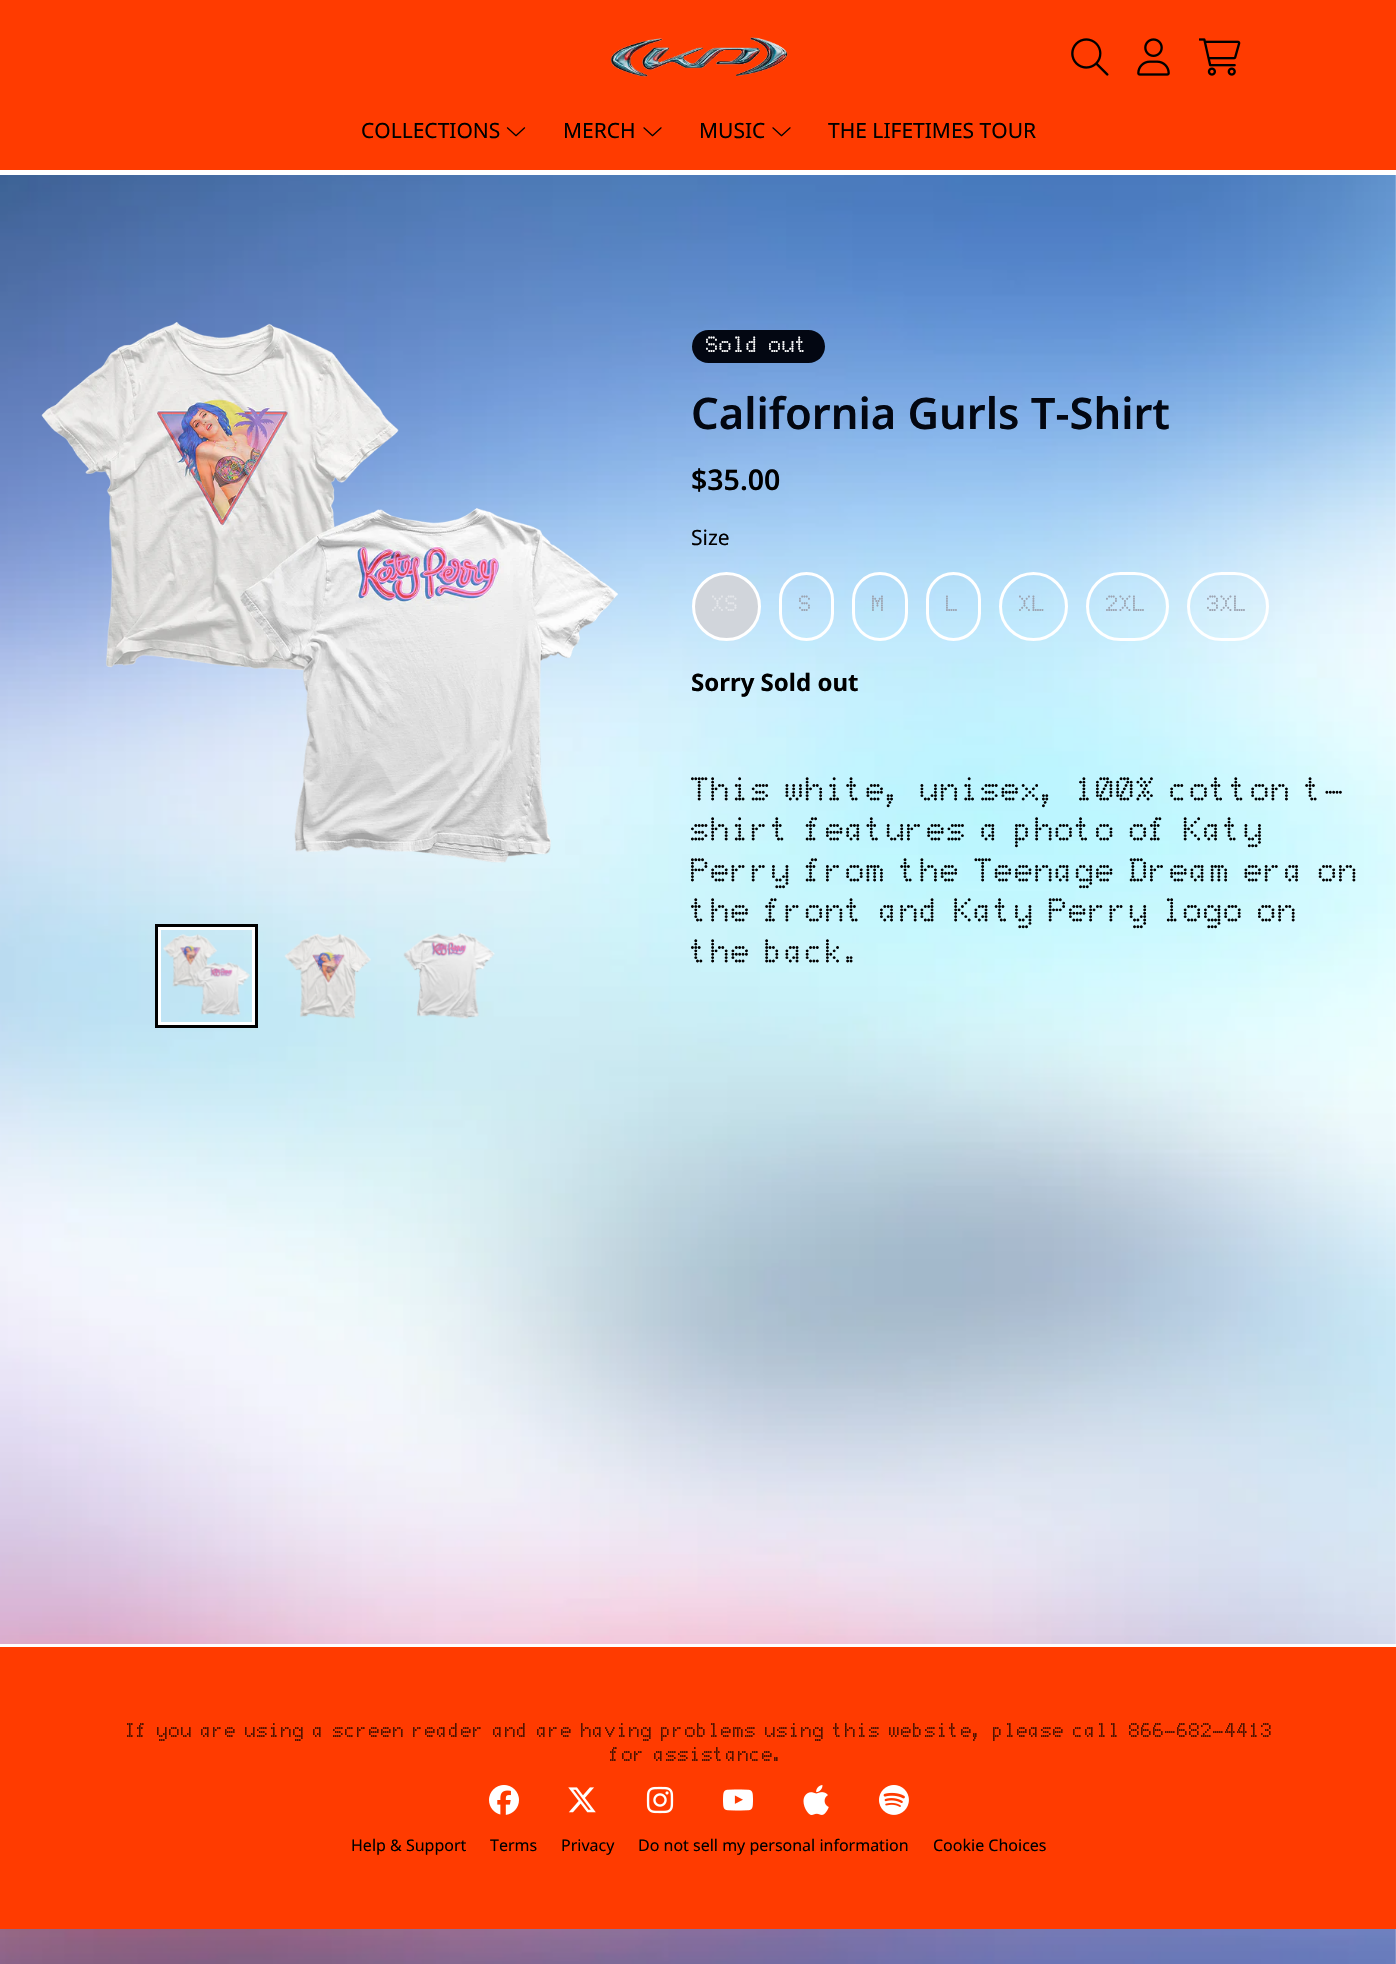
void draw(SkCanvas* canvas) {
	SkPaint paint;
	paint.setAntiAlias(true);
	canvas->clear(0xffffffff);
	paint.setColor(0xffff3b00);
	canvas->drawRect(SkRect::MakeXYWH(0, 0, 1396, 170), paint);
	canvas->drawImageRect(SkImages::DeferredFromEncodedData(SkData::MakeFromFileName("img1.png")), SkRect::MakeXYWH(611, 37, 177, 40), SkSamplingOptions());
	canvas->drawImageRect(SkImages::DeferredFromEncodedData(SkData::MakeFromFileName("img2.png")), SkRect::MakeXYWH(1071, 38, 38, 38), SkSamplingOptions());
	canvas->drawImageRect(SkImages::DeferredFromEncodedData(SkData::MakeFromFileName("img3.png")), SkRect::MakeXYWH(1137, 38, 33, 38), SkSamplingOptions());
	canvas->drawImageRect(SkImages::DeferredFromEncodedData(SkData::MakeFromFileName("img4.png")), SkRect::MakeXYWH(1199, 38, 42, 38), SkSamplingOptions());
	SkFont f1(fontMgr->matchFamilyStyle("Noto Sans", SkFontStyle::Normal()), 21);
	f1.setSubpixel(true);
	paint.setColor(0xff000000);
	canvas->drawString("COLLECTIONS", 361, 138, f1, paint);
	canvas->drawImageRect(SkImages::DeferredFromEncodedData(SkData::MakeFromFileName("img5.png")), SkRect::MakeXYWH(506, 127, 20, 10), SkSamplingOptions());
	canvas->drawString("MERCH", 563, 138, f1, paint);
	canvas->drawImageRect(SkImages::DeferredFromEncodedData(SkData::MakeFromFileName("img6.png")), SkRect::MakeXYWH(643, 127, 19, 10), SkSamplingOptions());
	canvas->drawString("MUSIC", 699, 138, f1, paint);
	canvas->drawImageRect(SkImages::DeferredFromEncodedData(SkData::MakeFromFileName("img6.png")), SkRect::MakeXYWH(772, 127, 19, 10), SkSamplingOptions());
	canvas->drawString("THE LIFETIMES TOUR", 828, 138, f1, paint);
	canvas->drawImageRect(SkImages::DeferredFromEncodedData(SkData::MakeFromFileName("img7.png")), SkRect::MakeXYWH(0, 175, 1396, 1789), SkSamplingOptions());
	canvas->drawImageRect(SkImages::DeferredFromEncodedData(SkData::MakeFromFileName("img8.png")), SkRect::MakeXYWH(41, 322, 577, 541), SkSamplingOptions());
	paint.setStroke(true);
	paint.setStrokeWidth(3);
	paint.setColor(0xffffffff);
	canvas->drawRect(SkRect::MakeXYWH(159.5, 928.5, 94, 95), paint);
	paint.setColor(0xff000000);
	canvas->drawRect(SkRect::MakeXYWH(156.5, 925.5, 100, 101), paint);
	canvas->drawImageRect(SkImages::DeferredFromEncodedData(SkData::MakeFromFileName("img9.png")), SkRect::MakeXYWH(163, 934, 87, 83), SkSamplingOptions());
	canvas->drawImageRect(SkImages::DeferredFromEncodedData(SkData::MakeFromFileName("img10.png")), SkRect::MakeXYWH(284, 933, 87, 86), SkSamplingOptions());
	canvas->drawImageRect(SkImages::DeferredFromEncodedData(SkData::MakeFromFileName("img11.png")), SkRect::MakeXYWH(403, 933, 92, 86), SkSamplingOptions());
	paint.setStroke(false);
	paint.setColor(0xff030712);
	canvas->drawRoundRect(SkRect::MakeXYWH(692, 330, 133, 33), 16.5, 16.5, paint);
	SkFont f2(fontMgr->matchFamilyStyle("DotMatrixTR", SkFontStyle::Normal()), 18);
	f2.setSubpixel(true);
	paint.setColor(0xffffffff);
	canvas->drawString("Sold out", 706, 351, f2, paint);
	SkFont f3(fontMgr->matchFamilyStyle("Noto Sans", SkFontStyle(600, SkFontStyle::kNormal_Width, SkFontStyle::kUpright_Slant)), 43.5);
	f3.setSubpixel(true);
	paint.setColor(0xff030711);
	canvas->drawString("California Gurls T-Shirt", 691, 429, f3, paint);
	SkFont f4(fontMgr->matchFamilyStyle("Noto Sans", SkFontStyle(600, SkFontStyle::kNormal_Width, SkFontStyle::kUpright_Slant)), 28.5);
	f4.setSubpixel(true);
	paint.setColor(0xff000000);
	canvas->drawString("$35.00", 691, 490, f4, paint);
	canvas->drawString("Size", 691, 545, f1, paint);
	paint.setColor(0xffd1d5db);
	canvas->drawCircle(726.5, 606.5, 33, paint);
	paint.setStroke(true);
	paint.setColor(0xffffffff);
	canvas->drawCircle(726.5, 606.5, 33, paint);
	paint.setStroke(false);
	paint.setColor(0xffe5e7eb);
	canvas->drawString("XS", 712, 610, f2, paint);
	paint.setStroke(true);
	paint.setColor(0xffffffff);
	canvas->drawRoundRect(SkRect::MakeXYWH(780.5, 573.5, 52, 66), 26, 26, paint);
	paint.setStroke(false);
	paint.setColor(0xff9ca3b0);
	canvas->drawString("S", 799, 610, f2, paint);
	paint.setStroke(true);
	paint.setColor(0xffffffff);
	canvas->drawRoundRect(SkRect::MakeXYWH(853.5, 573.5, 53, 66), 26.5, 26.5, paint);
	paint.setStroke(false);
	paint.setColor(0xff9ca3b0);
	canvas->drawString("M", 872, 610, f2, paint);
	paint.setStroke(true);
	paint.setColor(0xffffffff);
	canvas->drawRoundRect(SkRect::MakeXYWH(927.5, 573.5, 52, 66), 26, 26, paint);
	paint.setStroke(false);
	paint.setColor(0xff9ca3b0);
	canvas->drawString("L", 946, 610, f2, paint);
	paint.setStroke(true);
	paint.setColor(0xffffffff);
	canvas->drawCircle(1033.5, 606.5, 33, paint);
	paint.setStroke(false);
	paint.setColor(0xff9ca3b0);
	canvas->drawString("XL", 1019, 610, f2, paint);
	paint.setStroke(true);
	paint.setColor(0xffffffff);
	canvas->drawRoundRect(SkRect::MakeXYWH(1087.5, 573.5, 80, 66), 33, 33, paint);
	paint.setStroke(false);
	paint.setColor(0xff9ca3b0);
	canvas->drawString("2XL", 1106, 610, f2, paint);
	paint.setStroke(true);
	paint.setColor(0xffffffff);
	canvas->drawRoundRect(SkRect::MakeXYWH(1188.5, 573.5, 79, 66), 33, 33, paint);
	paint.setStroke(false);
	paint.setColor(0xff9ca3b0);
	canvas->drawString("3XL", 1207, 610, f2, paint);
	SkFont f5(fontMgr->matchFamilyStyle("Noto Sans", SkFontStyle::Bold()), 24);
	f5.setSubpixel(true);
	paint.setColor(0xff000000);
	canvas->drawString("Sorry Sold out", 691, 691, f5, paint);
	SkFont f6(fontMgr->matchFamilyStyle("DotMatrixTR", SkFontStyle::Normal()), 27);
	f6.setSubpixel(true);
	canvas->drawString("This white, unisex, 100% cotton t-", 691, 799, f6, paint);
	canvas->drawString("shirt features a photo of Katy", 691, 839, f6, paint);
	canvas->drawString("Perry from the Teenage Dream era on", 691, 880, f6, paint);
	canvas->drawString("the front and Katy Perry logo on", 691, 920, f6, paint);
	canvas->drawString("the back.", 691, 961, f6, paint);
	paint.setColor(0xffff3b00);
	canvas->drawRect(SkRect::MakeXYWH(0, 1647, 1396, 282), paint);
	paint.setColor(0xffffffff);
	canvas->drawRect(SkRect::MakeXYWH(0, 1644, 1396, 3), paint);
	SkFont f7(fontMgr->matchFamilyStyle("DotMatrixTR", SkFontStyle::Normal()), 16);
	f7.setSubpixel(true);
	paint.setColor(0xff000000);
	canvas->drawString("If you are using a screen reader and are having problems using this website, please call 866-682-4413", 125, 1736, f7, paint);
	canvas->drawString("for assistance.", 610, 1760, f7, paint);
	canvas->drawImageRect(SkImages::DeferredFromEncodedData(SkData::MakeFromFileName("img12.png")), SkRect::MakeXYWH(489, 1785, 30, 30), SkSamplingOptions());
	canvas->drawImageRect(SkImages::DeferredFromEncodedData(SkData::MakeFromFileName("img13.png")), SkRect::MakeXYWH(568, 1787, 28, 26), SkSamplingOptions());
	canvas->drawImageRect(SkImages::DeferredFromEncodedData(SkData::MakeFromFileName("img14.png")), SkRect::MakeXYWH(646, 1786, 28, 28), SkSamplingOptions());
	canvas->drawImageRect(SkImages::DeferredFromEncodedData(SkData::MakeFromFileName("img15.png")), SkRect::MakeXYWH(723, 1789, 30, 22), SkSamplingOptions());
	canvas->drawImageRect(SkImages::DeferredFromEncodedData(SkData::MakeFromFileName("img16.png")), SkRect::MakeXYWH(803, 1785, 26, 30), SkSamplingOptions());
	canvas->drawImageRect(SkImages::DeferredFromEncodedData(SkData::MakeFromFileName("img17.png")), SkRect::MakeXYWH(879, 1785, 30, 30), SkSamplingOptions());
	SkFont f8(fontMgr->matchFamilyStyle("Noto Sans", SkFontStyle::Normal()), 16);
	f8.setSubpixel(true);
	canvas->drawString("Help & Support", 351, 1851, f8, paint);
	canvas->drawString("Terms", 490, 1851, f8, paint);
	canvas->drawString("Privacy", 561, 1851, f8, paint);
	canvas->drawString("Do not sell my personal information", 638, 1851, f8, paint);
	canvas->drawString("Cookie Choices", 933, 1851, f8, paint);
}
